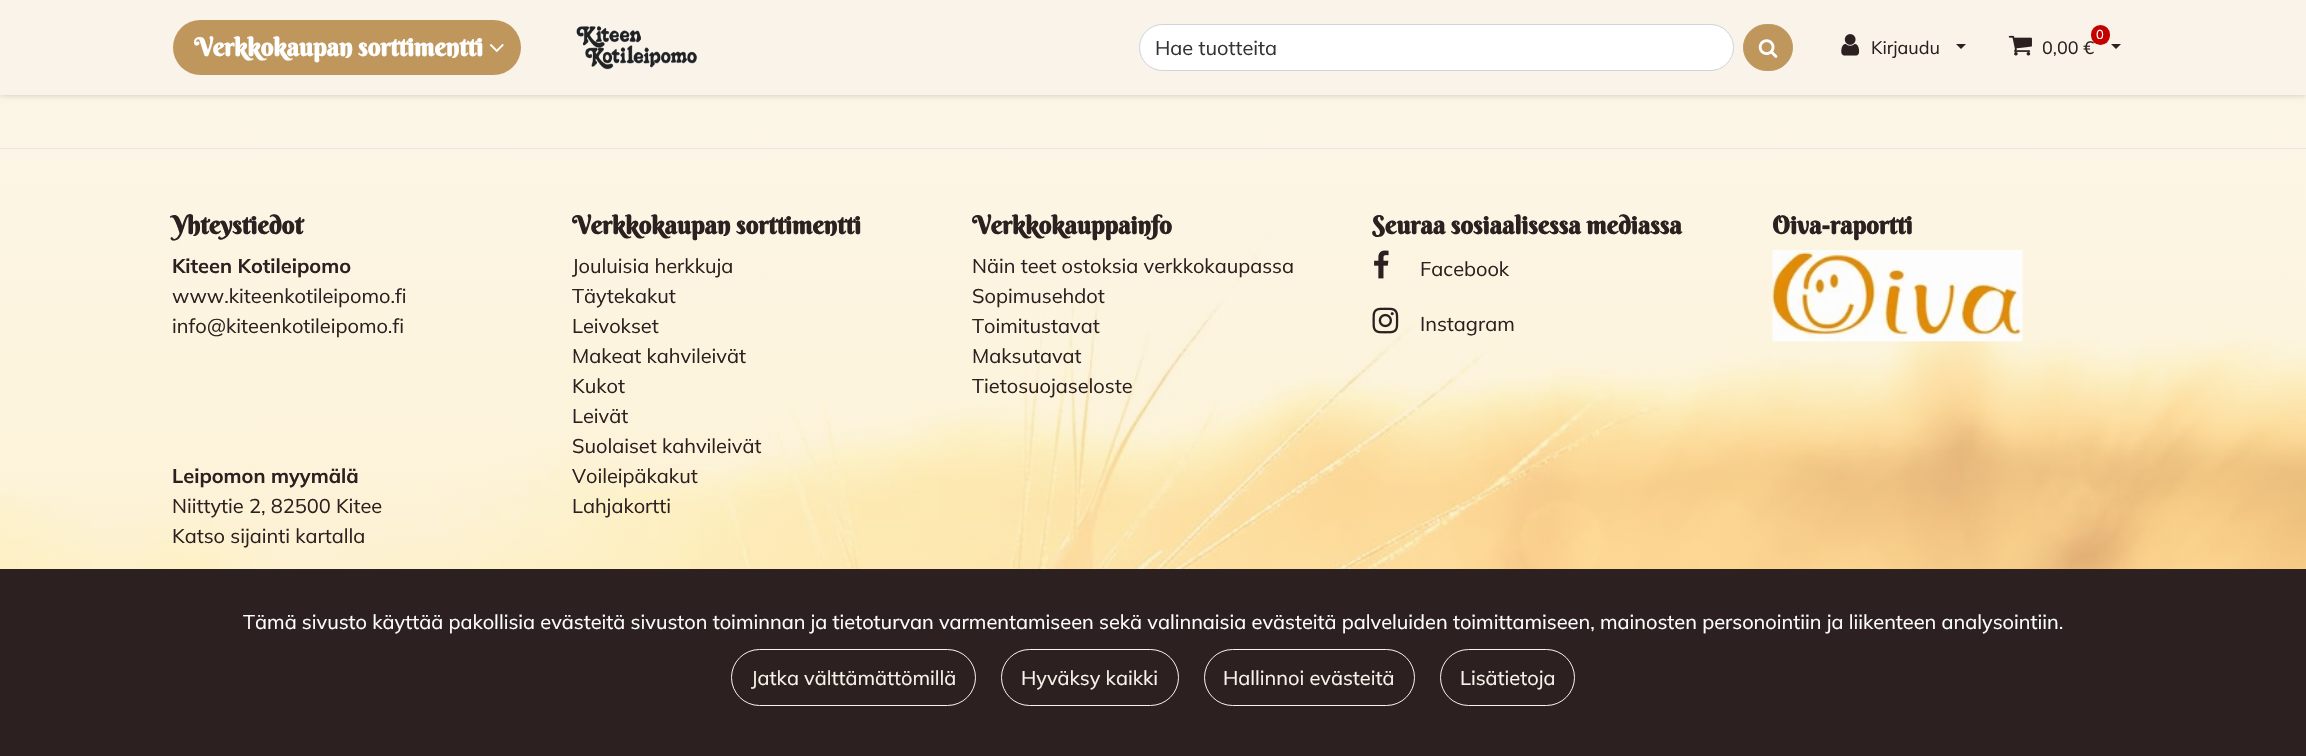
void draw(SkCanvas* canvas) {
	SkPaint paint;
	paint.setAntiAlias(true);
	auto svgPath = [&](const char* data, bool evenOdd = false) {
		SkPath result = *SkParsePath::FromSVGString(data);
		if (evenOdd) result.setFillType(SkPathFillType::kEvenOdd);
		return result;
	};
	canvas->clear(0xffffffff);
	canvas->drawImageRect(SkImages::DeferredFromEncodedData(SkData::MakeFromFileName("img1.png")), SkRect::MakeXYWH(0, 95, 2306, 474), SkSamplingOptions());
	paint.setColor(0x33000000);
	paint.setMaskFilter(SkMaskFilter::MakeBlur(kNormal_SkBlurStyle, 3));
	canvas->drawRect(SkRect::MakeXYWH(0, 0, 2306, 95), paint);
	paint.setMaskFilter(nullptr);
	paint.setColor(0xfff9f3e9);
	canvas->drawRect(SkRect::MakeXYWH(0, 0, 2306, 95), paint);
	paint.setColor(0xffbf975d);
	canvas->drawRoundRect(SkRect::MakeXYWH(173, 20, 348, 55), 27.5, 27.5, paint);
	SkFont f1(fontMgr->matchFamilyStyle("Berkshire Swash", SkFontStyle::Bold()), 25);
	f1.setSubpixel(true);
	paint.setColor(0xffffffff);
	canvas->drawString("Verkkokaupan sorttimentti", 194, 56, f1, paint);
	canvas->drawImageRect(SkImages::DeferredFromEncodedData(SkData::MakeFromFileName("img2.png")), SkRect::MakeXYWH(489, 44, 15, 8), SkSamplingOptions());
	canvas->drawImageRect(SkImages::DeferredFromEncodedData(SkData::MakeFromFileName("img3.png")), SkRect::MakeXYWH(576, 25, 122, 45), SkSamplingOptions());
	canvas->drawRoundRect(SkRect::MakeXYWH(1139.5, 24.5, 594, 46), 23, 23, paint);
	paint.setStroke(true);
	paint.setStrokeWidth(1);
	paint.setColor(0xffced4da);
	canvas->drawRoundRect(SkRect::MakeXYWH(1139.5, 24.5, 594, 46), 23, 23, paint);
	SkFont f2(fontMgr->matchFamilyStyle("Mulish", SkFontStyle::Normal()), 20);
	f2.setSubpixel(true);
	paint.setStroke(false);
	paint.setColor(0xff333333);
	canvas->drawString("Hae tuotteita", 1155, 55, f2, paint);
	paint.setColor(0xffbf975d);
	canvas->drawRoundRect(SkRect::MakeXYWH(1743.5, 24.5, 49, 46), 23, 23, paint);
	paint.setStroke(true);
	canvas->drawRoundRect(SkRect::MakeXYWH(1743.5, 24.5, 49, 46), 23, 23, paint);
	canvas->drawImageRect(SkImages::DeferredFromEncodedData(SkData::MakeFromFileName("img4.png")), SkRect::MakeXYWH(1758, 39, 20, 19), SkSamplingOptions());
	canvas->drawImageRect(SkImages::DeferredFromEncodedData(SkData::MakeFromFileName("img5.png")), SkRect::MakeXYWH(1841, 34, 19, 22), SkSamplingOptions());
	SkFont f3(fontMgr->matchFamilyStyle("Mulish", SkFontStyle::Normal()), 18);
	f3.setSubpixel(true);
	paint.setStroke(false);
	paint.setColor(0xff2d2020);
	canvas->drawString("Kirjaudu", 1871, 54, f3, paint);
	canvas->drawPath(svgPath("M1956 44H1966L1961 49Z"), paint);
	canvas->drawImageRect(SkImages::DeferredFromEncodedData(SkData::MakeFromFileName("img6.png")), SkRect::MakeXYWH(2008, 35, 24, 21), SkSamplingOptions());
	canvas->drawString("0,00 €", 2042, 54, f3, paint);
	paint.setColor(0xffc40000);
	canvas->drawRoundRect(SkRect::MakeXYWH(2091, 25, 19, 20), 9.5, 9.5, paint);
	SkFont f4(fontMgr->matchFamilyStyle("Mulish", SkFontStyle::Normal()), 13);
	f4.setSubpixel(true);
	paint.setColor(0xffffffff);
	canvas->drawString("0", 2096, 39, f4, paint);
	paint.setColor(0xff2d2020);
	canvas->drawPath(svgPath("M2111 44H2121L2116 49Z"), paint);
	paint.setColor(0xffe6e6e6);
	canvas->drawRect(SkRect::MakeXYWH(0, 148, 2306, 1), paint);
	paint.setColor(0xff2d2020);
	canvas->drawString("Yhteystiedot", 172, 234, f1, paint);
	SkFont f5(fontMgr->matchFamilyStyle("Mulish", SkFontStyle::Bold()), 20);
	f5.setSubpixel(true);
	canvas->drawString("Kiteen Kotileipomo", 172, 273, f5, paint);
	canvas->drawString("www.kiteenkotileipomo.fi", 172, 303, f2, paint);
	canvas->drawString("info@kiteenkotileipomo.fi", 172, 333, f2, paint);
	canvas->drawString("Leipomon myymälä", 172, 483, f5, paint);
	canvas->drawString("Niittytie 2, 82500 Kitee", 172, 513, f2, paint);
	canvas->drawString("Katso sijainti kartalla", 172, 543, f2, paint);
	canvas->drawString("Verkkokaupan sorttimentti", 572, 234, f1, paint);
	canvas->drawString("Jouluisia herkkuja", 572, 273, f2, paint);
	canvas->drawString("Täytekakut", 572, 303, f2, paint);
	canvas->drawString("Leivokset", 572, 333, f2, paint);
	canvas->drawString("Makeat kahvileivät", 572, 363, f2, paint);
	canvas->drawString("Kukot", 572, 393, f2, paint);
	canvas->drawString("Leivät", 572, 423, f2, paint);
	canvas->drawString("Suolaiset kahvileivät", 572, 453, f2, paint);
	canvas->drawString("Voileipäkakut", 572, 483, f2, paint);
	canvas->drawString("Lahjakortti", 572, 513, f2, paint);
	canvas->drawString("Verkkokauppainfo", 972, 234, f1, paint);
	canvas->drawString("Näin teet ostoksia verkkokaupassa", 972, 273, f2, paint);
	canvas->drawString("Sopimusehdot", 972, 303, f2, paint);
	canvas->drawString("Toimitustavat", 972, 333, f2, paint);
	canvas->drawString("Maksutavat", 972, 363, f2, paint);
	canvas->drawString("Tietosuojaseloste", 972, 393, f2, paint);
	canvas->drawString("Seuraa sosiaalisessa mediassa", 1372, 234, f1, paint);
	canvas->drawImageRect(SkImages::DeferredFromEncodedData(SkData::MakeFromFileName("img7.png")), SkRect::MakeXYWH(1374, 250, 15, 29), SkSamplingOptions());
	canvas->drawString("Facebook", 1420, 276, f2, paint);
	canvas->drawImageRect(SkImages::DeferredFromEncodedData(SkData::MakeFromFileName("img8.png")), SkRect::MakeXYWH(1372, 307, 27, 27), SkSamplingOptions());
	canvas->drawString("Instagram", 1420, 331, f2, paint);
	canvas->drawString("Oiva-raportti", 1772, 234, f1, paint);
	canvas->drawImageRect(SkImages::DeferredFromEncodedData(SkData::MakeFromFileName("img9.png")), SkRect::MakeXYWH(1772, 250, 251, 92), SkSamplingOptions());
	canvas->drawRect(SkRect::MakeXYWH(0, 569, 2306, 187), paint);
	paint.setColor(0xffffffff);
	canvas->drawString("Tämä sivusto käyttää pakollisia evästeitä sivuston toiminnan ja tietoturvan varmentamiseen sekä valinnaisia evästeitä palveluiden toimittamiseen, mainosten personointiin ja liikenteen analysointiin.", 243, 629, f2, paint);
	paint.setStroke(true);
	paint.setColor(0xfff9f3e9);
	canvas->drawRoundRect(SkRect::MakeXYWH(731.5, 649.5, 244, 56), 28, 28, paint);
	paint.setStroke(false);
	canvas->drawString("Jatka välttämättömillä", 751, 685, f2, paint);
	paint.setStroke(true);
	canvas->drawRoundRect(SkRect::MakeXYWH(1001.5, 649.5, 177, 56), 28, 28, paint);
	paint.setStroke(false);
	canvas->drawString("Hyväksy kaikki", 1021, 685, f2, paint);
	paint.setStroke(true);
	canvas->drawRoundRect(SkRect::MakeXYWH(1204.5, 649.5, 210, 56), 28, 28, paint);
	paint.setStroke(false);
	canvas->drawString("Hallinnoi evästeitä", 1223, 685, f2, paint);
	paint.setStroke(true);
	canvas->drawRoundRect(SkRect::MakeXYWH(1440.5, 649.5, 134, 56), 28, 28, paint);
	paint.setStroke(false);
	canvas->drawString("Lisätietoja", 1460, 685, f2, paint);
}
